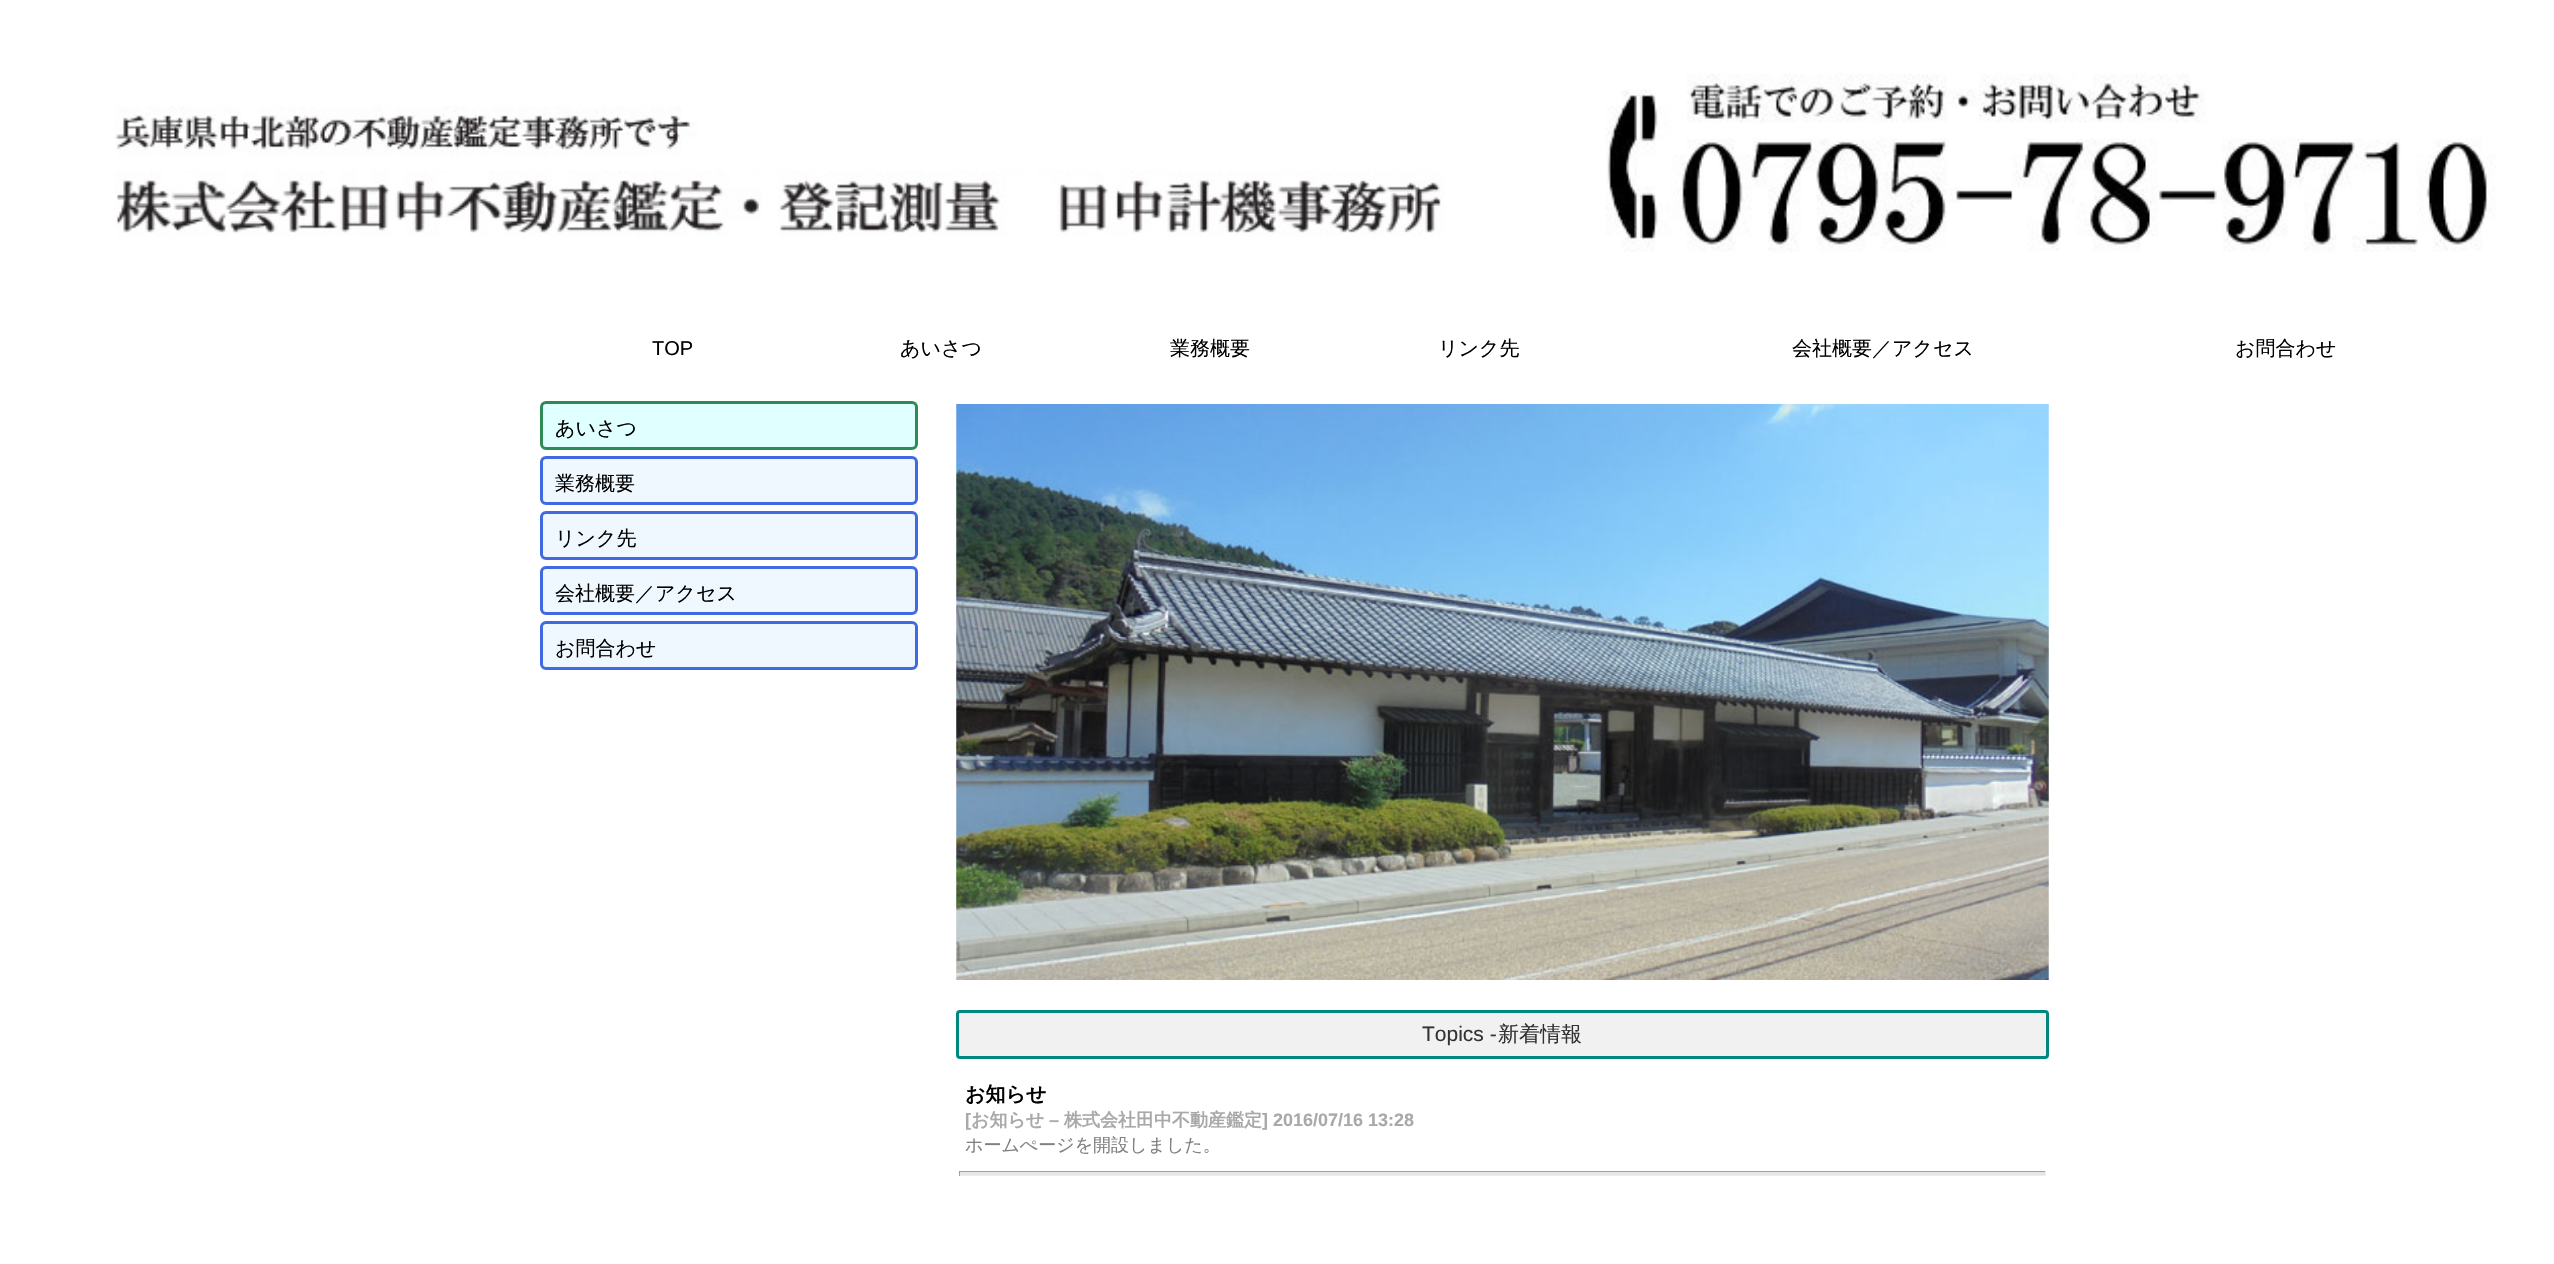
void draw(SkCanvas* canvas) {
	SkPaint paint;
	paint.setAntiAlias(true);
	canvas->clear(0xffffffff);
	canvas->drawImageRect(SkImages::DeferredFromEncodedData(SkData::MakeFromFileName("img1.png")), SkRect::MakeXYWH(115, 73, 2381, 179), SkSamplingOptions());
	SkFont f1(fontMgr->matchFamilyStyle("Liberation Sans", SkFontStyle::Normal()), 20);
	f1.setSubpixel(true);
	paint.setColor(0xff000000);
	canvas->drawString("TOP", 652, 355, f1, paint);
	SkFont f2(fontMgr->matchFamilyStyle("WenQuanYi Zen Hei", SkFontStyle(500, SkFontStyle::kNormal_Width, SkFontStyle::kUpright_Slant)), 20);
	f2.setSubpixel(true);
	canvas->drawString("あいさつ", 900, 355, f2, paint);
	canvas->drawString("業務概要", 1170, 355, f2, paint);
	canvas->drawString("リンク先", 1438, 355, f2, paint);
	canvas->drawString("会社概要／アクセス", 1792, 355, f2, paint);
	canvas->drawString("お問合わせ", 2235, 355, f2, paint);
	paint.setColor(0xffe0ffff);
	canvas->drawRoundRect(SkRect::MakeXYWH(541.5, 402.5, 375, 46), 4.5, 4.5, paint);
	paint.setStroke(true);
	paint.setStrokeWidth(3);
	paint.setColor(0xff2e8b57);
	canvas->drawRoundRect(SkRect::MakeXYWH(541.5, 402.5, 375, 46), 4.5, 4.5, paint);
	paint.setStroke(false);
	paint.setColor(0xff000000);
	canvas->drawString("あいさつ", 555, 435, f2, paint);
	paint.setColor(0xfff0f8ff);
	canvas->drawRoundRect(SkRect::MakeXYWH(541.5, 457.5, 375, 46), 4.5, 4.5, paint);
	paint.setStroke(true);
	paint.setColor(0xff4169e1);
	canvas->drawRoundRect(SkRect::MakeXYWH(541.5, 457.5, 375, 46), 4.5, 4.5, paint);
	paint.setStroke(false);
	paint.setColor(0xff000000);
	canvas->drawString("業務概要", 555, 490, f2, paint);
	paint.setColor(0xfff0f8ff);
	canvas->drawRoundRect(SkRect::MakeXYWH(541.5, 512.5, 375, 46), 4.5, 4.5, paint);
	paint.setStroke(true);
	paint.setColor(0xff4169e1);
	canvas->drawRoundRect(SkRect::MakeXYWH(541.5, 512.5, 375, 46), 4.5, 4.5, paint);
	paint.setStroke(false);
	paint.setColor(0xff000000);
	canvas->drawString("リンク先", 555, 545, f2, paint);
	paint.setColor(0xfff0f8ff);
	canvas->drawRoundRect(SkRect::MakeXYWH(541.5, 567.5, 375, 46), 4.5, 4.5, paint);
	paint.setStroke(true);
	paint.setColor(0xff4169e1);
	canvas->drawRoundRect(SkRect::MakeXYWH(541.5, 567.5, 375, 46), 4.5, 4.5, paint);
	paint.setStroke(false);
	paint.setColor(0xff000000);
	canvas->drawString("会社概要／アクセス", 555, 600, f2, paint);
	paint.setColor(0xfff0f8ff);
	canvas->drawRoundRect(SkRect::MakeXYWH(541.5, 622.5, 375, 46), 4.5, 4.5, paint);
	paint.setStroke(true);
	paint.setColor(0xff4169e1);
	canvas->drawRoundRect(SkRect::MakeXYWH(541.5, 622.5, 375, 46), 4.5, 4.5, paint);
	paint.setStroke(false);
	paint.setColor(0xff000000);
	canvas->drawString("お問合わせ", 555, 655, f2, paint);
	canvas->drawImageRect(SkImages::DeferredFromEncodedData(SkData::MakeFromFileName("img2.png")), SkRect::MakeXYWH(956, 404, 1093, 576), SkSamplingOptions());
	paint.setColor(0xfff1f1f1);
	canvas->drawRoundRect(SkRect::MakeXYWH(957.5, 1011.5, 1090, 46), 2.5, 2.5, paint);
	paint.setStroke(true);
	paint.setColor(0xff008880);
	canvas->drawRoundRect(SkRect::MakeXYWH(957.5, 1011.5, 1090, 46), 2.5, 2.5, paint);
	SkFont f3(fontMgr->matchFamilyStyle("Liberation Sans", SkFontStyle::Normal()), 21);
	f3.setSubpixel(true);
	paint.setStroke(false);
	paint.setColor(0xff333333);
	canvas->drawString("Topics -", 1422, 1041, f3, paint);
	SkFont f4(fontMgr->matchFamilyStyle("WenQuanYi Zen Hei", SkFontStyle(500, SkFontStyle::kNormal_Width, SkFontStyle::kUpright_Slant)), 21);
	f4.setSubpixel(true);
	canvas->drawString("新着情報", 1498, 1041, f4, paint);
	SkFont f5(fontMgr->matchFamilyStyle("WenQuanYi Zen Hei", SkFontStyle::Bold()), 20);
	f5.setSubpixel(true);
	paint.setColor(0xff000000);
	canvas->drawString("お知らせ", 965, 1101, f5, paint);
	SkFont f6(fontMgr->matchFamilyStyle("Liberation Sans", SkFontStyle::Bold()), 18);
	f6.setSubpixel(true);
	paint.setColor(0xffa9a9a9);
	canvas->drawString("[", 965, 1126, f6, paint);
	SkFont f7(fontMgr->matchFamilyStyle("WenQuanYi Zen Hei", SkFontStyle::Bold()), 18);
	f7.setSubpixel(true);
	canvas->drawString("お知らせ", 971, 1126, f7, paint);
	canvas->drawString("–", 1049, 1126, f6, paint);
	canvas->drawString("株式会社田中不動産鑑定", 1064, 1126, f7, paint);
	canvas->drawString("] 2016/07/16 13:28", 1262, 1126, f6, paint);
	SkFont f8(fontMgr->matchFamilyStyle("WenQuanYi Zen Hei", SkFontStyle(500, SkFontStyle::kNormal_Width, SkFontStyle::kUpright_Slant)), 18);
	f8.setSubpixel(true);
	paint.setColor(0xff808080);
	canvas->drawString("ホームぺージを開設しました。", 965, 1151, f8, paint);
	paint.setColor(0xffe6e6e6);
	canvas->drawRect(SkRect::MakeXYWH(959, 1172, 1087, 3), paint);
	paint.setColor(0xff9f9f9f);
	canvas->drawRect(SkRect::MakeXYWH(959, 1171, 1087, 1), paint);
	paint.setColor(0xffeeeeee);
	canvas->drawRect(SkRect::MakeXYWH(2045, 1171, 1, 5), paint);
	canvas->drawRect(SkRect::MakeXYWH(959, 1175, 1087, 1), paint);
	paint.setColor(0xff9f9f9f);
	canvas->drawRect(SkRect::MakeXYWH(959, 1171, 1, 5), paint);
}
